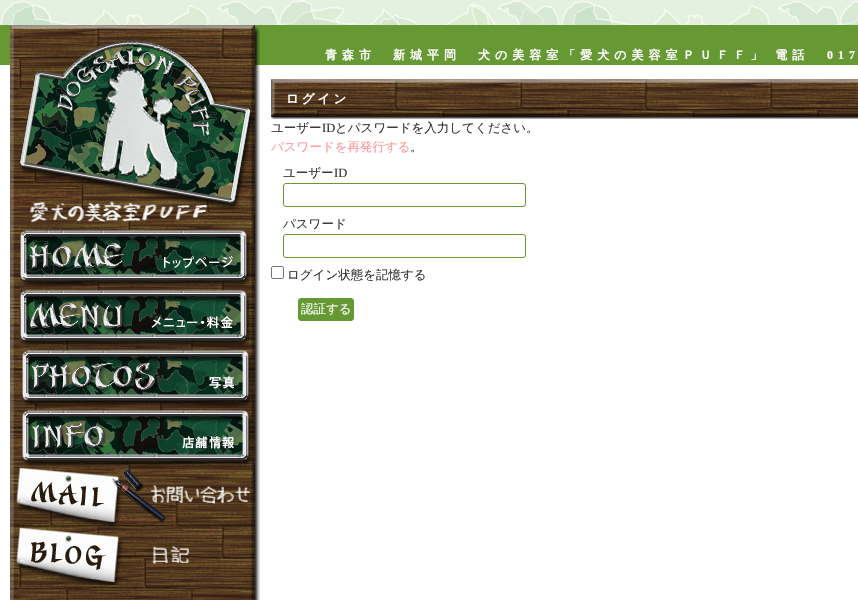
void draw(SkCanvas* canvas) {
	SkPaint paint;
	paint.setAntiAlias(true);
	auto spacedText = [&](const char* s, float x, float y, const SkFont& font, const SkPaint& ink, float letter, float word) {
		std::vector<SkGlyphID> glyphs(font.countText(s, strlen(s), SkTextEncoding::kUTF8));
		std::vector<float> xs(glyphs.size());
		font.textToGlyphs(s, strlen(s), SkTextEncoding::kUTF8, glyphs);
		font.getXPos(glyphs, xs, x);
		float extra = 0;
		for (size_t i = 0; i < glyphs.size(); i++) {
			xs[i] += extra;
			extra += letter + word * (glyphs[i] == font.unicharToGlyph(' '));
		}
		canvas->drawTextBlob(SkTextBlob::MakeFromPosHGlyphs(glyphs, xs, y, font), 0, 0, ink);
	};
	canvas->clear(0xffffffff);
	canvas->drawImageRect(SkImages::DeferredFromEncodedData(SkData::MakeFromFileName("img1.png")), SkRect::MakeXYWH(0, 0, 858, 25), SkSamplingOptions());
	canvas->drawImageRect(SkImages::DeferredFromEncodedData(SkData::MakeFromFileName("img2.png")), SkRect::MakeXYWH(10, 65, 250, 535), SkSamplingOptions());
	canvas->drawImageRect(SkImages::DeferredFromEncodedData(SkData::MakeFromFileName("img3.png")), SkRect::MakeXYWH(0, 25, 858, 40), SkSamplingOptions());
	SkFont f1(fontMgr->matchFamilyStyle("WenQuanYi Zen Hei", SkFontStyle::Bold()), 12);
	f1.setSubpixel(true);
	paint.setColor(0xffffffff);
	spacedText("青森市　新城平岡　犬の美容室「愛犬の美容室ＰＵＦＦ」 電話", 325, 59, f1, paint, 5, -1);
	SkFont f2(fontMgr->matchFamilyStyle("Liberation Serif", SkFontStyle::Bold()), 12);
	f2.setSubpixel(true);
	spacedText("017", 827, 59, f2, paint, 5, 0);
	canvas->drawImageRect(SkImages::DeferredFromEncodedData(SkData::MakeFromFileName("img4.png")), SkRect::MakeXYWH(10, 65, 247, 160), SkSamplingOptions());
	canvas->drawImageRect(SkImages::DeferredFromEncodedData(SkData::MakeFromFileName("img5.png")), SkRect::MakeXYWH(10, 225, 245, 60), SkSamplingOptions());
	canvas->drawImageRect(SkImages::DeferredFromEncodedData(SkData::MakeFromFileName("img6.png")), SkRect::MakeXYWH(10, 285, 245, 60), SkSamplingOptions());
	canvas->drawImageRect(SkImages::DeferredFromEncodedData(SkData::MakeFromFileName("img7.png")), SkRect::MakeXYWH(10, 345, 245, 60), SkSamplingOptions());
	canvas->drawImageRect(SkImages::DeferredFromEncodedData(SkData::MakeFromFileName("img8.png")), SkRect::MakeXYWH(10, 405, 245, 60), SkSamplingOptions());
	canvas->drawImageRect(SkImages::DeferredFromEncodedData(SkData::MakeFromFileName("img9.png")), SkRect::MakeXYWH(10, 465, 245, 60), SkSamplingOptions());
	canvas->drawImageRect(SkImages::DeferredFromEncodedData(SkData::MakeFromFileName("img10.png")), SkRect::MakeXYWH(10, 525, 245, 60), SkSamplingOptions());
	canvas->drawImageRect(SkImages::DeferredFromEncodedData(SkData::MakeFromFileName("img11.png")), SkRect::MakeXYWH(271, 79, 587, 40), SkSamplingOptions());
	SkFont f3(fontMgr->matchFamilyStyle("WenQuanYi Zen Hei", SkFontStyle::Bold()), 12.5);
	f3.setSubpixel(true);
	spacedText("ログイン", 286, 103, f3, paint, 3, 0);
	SkFont f4(fontMgr->matchFamilyStyle("WenQuanYi Zen Hei", SkFontStyle(500, SkFontStyle::kNormal_Width, SkFontStyle::kUpright_Slant)), 12.5);
	f4.setSubpixel(true);
	paint.setColor(0xff333333);
	canvas->drawString("ユーザー", 271, 132, f4, paint);
	SkFont f5(fontMgr->matchFamilyStyle("Liberation Serif", SkFontStyle::Normal()), 12.5);
	f5.setSubpixel(true);
	canvas->drawString("ID", 322, 132, f5, paint);
	canvas->drawString("とパスワードを入力してください。", 335, 132, f4, paint);
	paint.setColor(0xffff9999);
	canvas->drawString("パスワードを再発行する", 271, 151, f4, paint);
	paint.setColor(0xff333333);
	canvas->drawString("。", 410, 151, f4, paint);
	canvas->drawString("ユーザー", 283, 177, f4, paint);
	canvas->drawString("ID", 334, 177, f5, paint);
	paint.setStroke(true);
	paint.setStrokeWidth(1);
	paint.setColor(0xff669933);
	canvas->drawRoundRect(SkRect::MakeXYWH(283.5, 183.5, 242, 23), 2.5, 2.5, paint);
	paint.setStroke(false);
	paint.setColor(0xff333333);
	canvas->drawString("パスワード", 283, 228, f4, paint);
	paint.setStroke(true);
	paint.setColor(0xff669933);
	canvas->drawRoundRect(SkRect::MakeXYWH(283.5, 234.5, 242, 23), 2.5, 2.5, paint);
	paint.setColor(0xff767676);
	canvas->drawRoundRect(SkRect::MakeXYWH(271.5, 266.5, 12, 12), 1.5, 1.5, paint);
	paint.setStroke(false);
	paint.setColor(0xff333333);
	canvas->drawString("ログイン状態を記憶する", 287, 279, f4, paint);
	paint.setColor(0xff669933);
	canvas->drawRoundRect(SkRect::MakeXYWH(298.5, 298.5, 55, 22), 2.5, 2.5, paint);
	paint.setStroke(true);
	canvas->drawRoundRect(SkRect::MakeXYWH(298.5, 298.5, 55, 22), 2.5, 2.5, paint);
	paint.setStroke(false);
	paint.setColor(0xffffffff);
	canvas->drawString("認証する", 301, 313, f4, paint);
}
